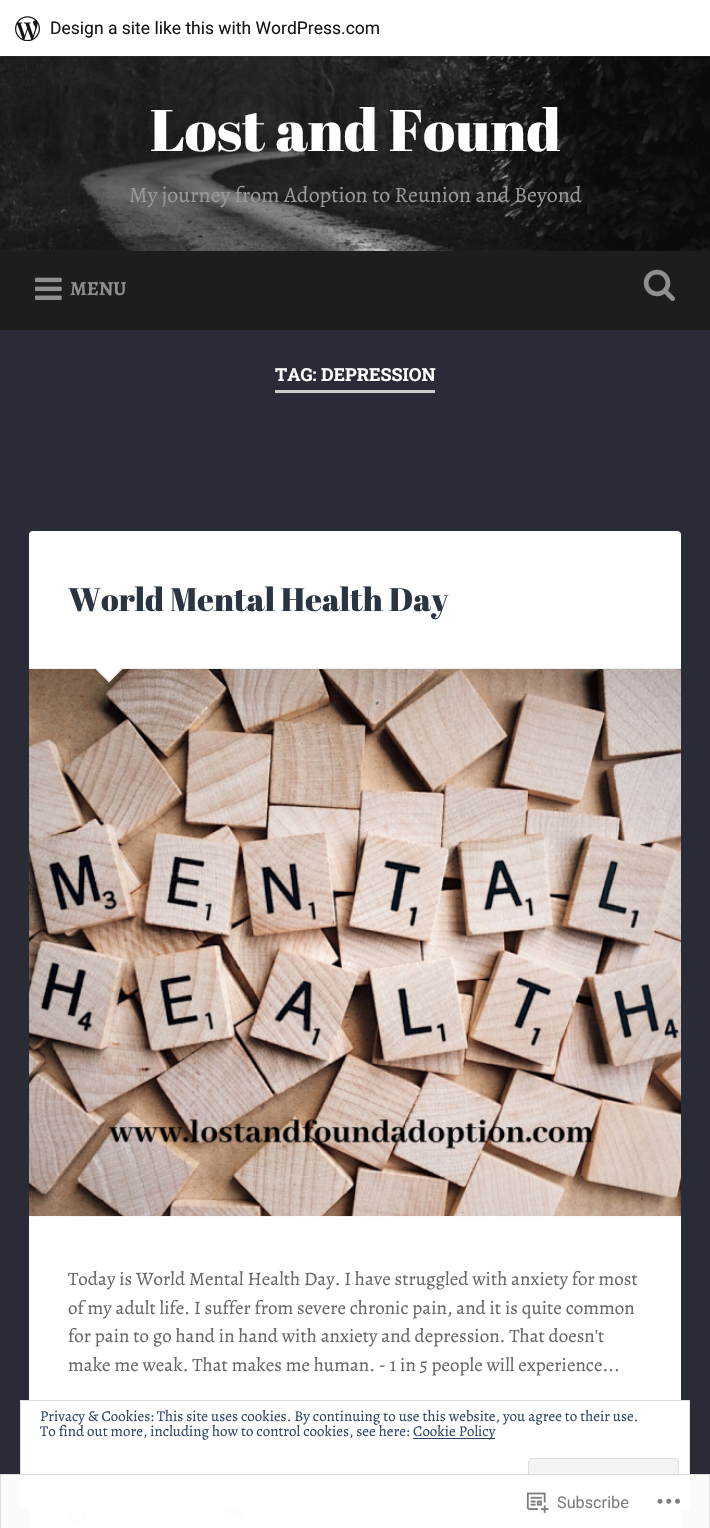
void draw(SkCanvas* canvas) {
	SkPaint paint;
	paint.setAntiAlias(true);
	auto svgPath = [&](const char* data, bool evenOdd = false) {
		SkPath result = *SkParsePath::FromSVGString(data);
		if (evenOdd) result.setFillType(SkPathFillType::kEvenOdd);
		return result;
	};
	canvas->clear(0xff292c37);
	canvas->drawImageRect(SkImages::DeferredFromEncodedData(SkData::MakeFromFileName("img2.png")), SkRect::MakeXYWH(0, 56, 710, 195), SkSamplingOptions());
	paint.setColor(0x14000000);
	canvas->drawPath(svgPath("M1 56V60H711V4H710V56Z"), paint);
	paint.setColor(0xffffffff);
	canvas->drawRect(SkRect::MakeXYWH(0, 0, 710, 56), paint);
	canvas->drawImageRect(SkImages::DeferredFromEncodedData(SkData::MakeFromFileName("img1.png")), SkRect::MakeXYWH(15, 16, 25, 25), SkSamplingOptions());
	SkFont f1(fontMgr->matchFamilyStyle("Roboto", SkFontStyle::Normal()), 17.5);
	f1.setSubpixel(true);
	paint.setColor(0xff171717);
	canvas->drawString("Design a site like this with WordPress.com", 50, 34, f1, paint);
	SkFont f2(fontMgr->matchFamilyStyle("Abril Fatface", SkFontStyle::Normal()), 58.5);
	f2.setSubpixel(true);
	paint.setColor(0xffffffff);
	canvas->drawString("Lost and Found", 150, 151, f2, paint);
	SkFont f3(fontMgr->matchFamilyStyle("Alegreya", SkFontStyle::Normal()), 22);
	f3.setSubpixel(true);
	paint.setColor(0xff999999);
	canvas->drawString("My journey from Adoption to Reunion and Beyond", 129, 202, f3, paint);
	paint.setColor(0xff1d1d1d);
	canvas->drawRect(SkRect::MakeXYWH(0, 251, 710, 79), paint);
	canvas->drawImageRect(SkImages::DeferredFromEncodedData(SkData::MakeFromFileName("img3.png")), SkRect::MakeXYWH(35, 277, 27, 23), SkSamplingOptions());
	SkFont f4(fontMgr->matchFamilyStyle("Alegreya", SkFontStyle::Bold()), 20);
	f4.setSubpixel(true);
	paint.setColor(0xff8e8e8e);
	canvas->drawString("MENU", 70, 295, f4, paint);
	canvas->drawImageRect(SkImages::DeferredFromEncodedData(SkData::MakeFromFileName("img4.png")), SkRect::MakeXYWH(643, 269, 32, 32), SkSamplingOptions());
	paint.setColor(0xffcccccc);
	canvas->drawRect(SkRect::MakeXYWH(275, 390, 160, 3), paint);
	SkFont f5(fontMgr->matchFamilyStyle("Roboto Slab", SkFontStyle::Bold()), 18);
	f5.setSubpixel(true);
	paint.setColor(0xffffffff);
	canvas->drawString("TAG: DEPRESSION", 275, 381, f5, paint);
	canvas->drawRoundRect(SkRect::MakeXYWH(29, 531, 652, 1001), 4, 4, paint);
	paint.setColor(0xffeeeeee);
	canvas->drawRect(SkRect::MakeXYWH(29, 668, 652, 1), paint);
	SkFont f6(fontMgr->matchFamilyStyle("Abril Fatface", SkFontStyle::Normal()), 32.5);
	f6.setSubpixel(true);
	paint.setColor(0xff2b3542);
	canvas->drawString("World Mental Health Day", 68, 611, f6, paint);
	canvas->drawImageRect(SkImages::DeferredFromEncodedData(SkData::MakeFromFileName("img5.png")), SkRect::MakeXYWH(29, 669, 652, 548), SkSamplingOptions());
	paint.setColor(0xffeeeeee);
	canvas->drawPath(svgPath("M94 667.5H124L109 682.5Z"), paint);
	paint.setColor(0xffffffff);
	canvas->drawPath(svgPath("M95 666H122.5L109 680Z"), paint);
	SkFont f7(fontMgr->matchFamilyStyle("Alegreya", SkFontStyle::Normal()), 19);
	f7.setSubpixel(true);
	paint.setColor(0xff666666);
	canvas->drawString("Today is World Mental Health Day. I have struggled with anxiety for most", 68, 1285, f7, paint);
	canvas->drawString("of my adult life. I suffer from severe chronic pain, and it is quite common", 68, 1314, f7, paint);
	canvas->drawString("for pain to go hand in hand with anxiety and depression. That doesn't", 68, 1342, f7, paint);
	canvas->drawString("make me weak. That makes me human. - 1 in 5 people will experience...", 68, 1371, f7, paint);
	paint.setColor(0xffeaeaeb);
	canvas->drawRect(SkRect::MakeXYWH(29, 1509, 652, 19), paint);
	canvas->drawImageRect(SkImages::DeferredFromEncodedData(SkData::MakeFromFileName("img6.png")), SkRect::MakeXYWH(67, 1509, 20, 16), SkSamplingOptions());
	canvas->drawImageRect(SkImages::DeferredFromEncodedData(SkData::MakeFromFileName("img7.png")), SkRect::MakeXYWH(225, 1509, 21, 13), SkSamplingOptions());
	paint.setColor(0xffffffff);
	canvas->drawRect(SkRect::MakeXYWH(20.5, 1400.5, 669, 108), paint);
	paint.setStroke(true);
	paint.setStrokeWidth(1);
	paint.setColor(0xffdedede);
	canvas->drawRect(SkRect::MakeXYWH(20.5, 1400.5, 669, 108), paint);
	SkFont f8(fontMgr->matchFamilyStyle("Alegreya", SkFontStyle::Normal()), 15);
	f8.setSubpixel(true);
	paint.setStroke(false);
	paint.setColor(0xff2e4467);
	canvas->drawString("Privacy & Cookies: This site uses cookies. By continuing to use this website, you agree to their use.", 40, 1421, f8, paint);
	canvas->drawString("To find out more, including how to control cookies, see here:", 40, 1436, f8, paint);
	canvas->drawRect(SkRect::MakeXYWH(413, 1438, 82, 1), paint);
	canvas->drawString("Cookie Policy", 413, 1436, f8, paint);
	paint.setColor(0xfff3f3f3);
	canvas->drawRoundRect(SkRect::MakeXYWH(528.5, 1458.5, 150, 39), 3.5, 3.5, paint);
	paint.setStroke(true);
	paint.setColor(0xffdedede);
	canvas->drawRoundRect(SkRect::MakeXYWH(528.5, 1458.5, 150, 39), 3.5, 3.5, paint);
	paint.setStroke(false);
	paint.setColor(0xfaffffff);
	canvas->drawRect(SkRect::MakeXYWH(0, 1474, 710, 54), paint);
	paint.setStroke(true);
	paint.setColor(0xfadcdcde);
	canvas->drawRect(SkRect::MakeXYWH(0.5, 1474.5, 709, 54), paint);
	canvas->drawImageRect(SkImages::DeferredFromEncodedData(SkData::MakeFromFileName("img8.png")), SkRect::MakeXYWH(526, 1492, 23, 21), SkSamplingOptions());
	SkFont f9(fontMgr->matchFamilyStyle("Roboto", SkFontStyle::Normal()), 16.25);
	f9.setSubpixel(true);
	paint.setStroke(false);
	paint.setColor(0xff7b7f84);
	canvas->drawString("Subscribe", 557, 1508, f9, paint);
	canvas->drawImageRect(SkImages::DeferredFromEncodedData(SkData::MakeFromFileName("img9.png")), SkRect::MakeXYWH(657, 1498, 23, 6), SkSamplingOptions());
}
